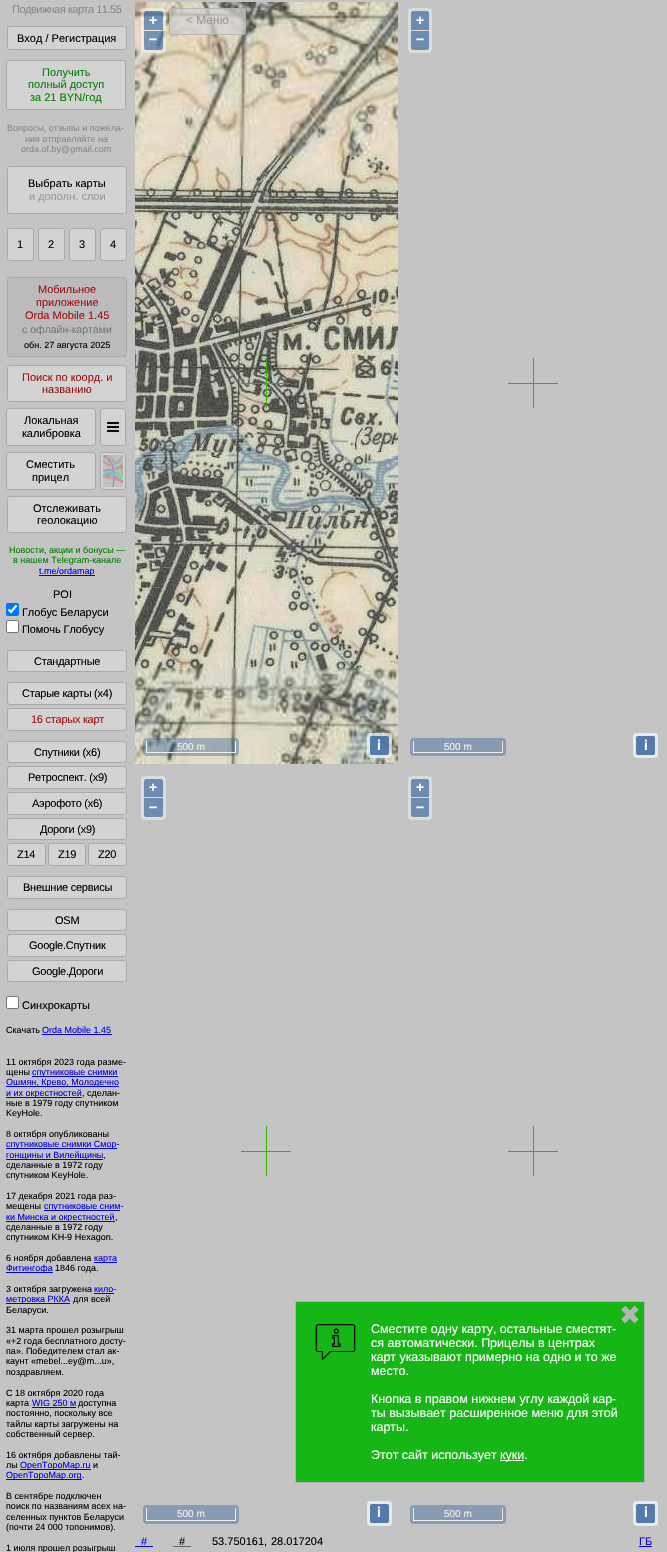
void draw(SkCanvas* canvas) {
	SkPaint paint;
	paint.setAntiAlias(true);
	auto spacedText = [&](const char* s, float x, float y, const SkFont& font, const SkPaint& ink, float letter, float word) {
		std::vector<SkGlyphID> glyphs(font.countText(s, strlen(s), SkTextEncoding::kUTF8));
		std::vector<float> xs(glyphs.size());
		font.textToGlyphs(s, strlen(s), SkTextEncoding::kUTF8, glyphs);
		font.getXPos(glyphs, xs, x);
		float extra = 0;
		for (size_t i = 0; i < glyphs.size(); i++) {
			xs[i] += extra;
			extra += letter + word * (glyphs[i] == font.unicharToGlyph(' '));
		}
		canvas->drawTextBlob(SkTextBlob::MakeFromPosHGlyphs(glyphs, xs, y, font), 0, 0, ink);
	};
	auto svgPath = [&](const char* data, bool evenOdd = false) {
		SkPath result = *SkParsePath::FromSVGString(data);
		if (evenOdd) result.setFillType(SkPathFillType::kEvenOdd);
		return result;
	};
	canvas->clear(0xffc4c4c4);
	SkFont f1(fontMgr->matchFamilyStyle("Liberation Sans", SkFontStyle::Normal()), 11);
	f1.setSubpixel(true);
	paint.setColor(0xff888888);
	spacedText("Подвижная карта 11.55", 12, 13, f1, paint, -0.5, 0);
	paint.setColor(0xffd3d3d3);
	canvas->drawRoundRect(SkRect::MakeXYWH(7.5, 26.5, 119, 23), 2.5, 2.5, paint);
	paint.setStroke(true);
	paint.setStrokeWidth(1);
	paint.setColor(0xffaaaaaa);
	canvas->drawRoundRect(SkRect::MakeXYWH(7.5, 26.5, 119, 23), 2.5, 2.5, paint);
	paint.setStroke(false);
	paint.setColor(0xff000000);
	canvas->drawString("Вход / Регистрация", 17, 42, f1, paint);
	paint.setColor(0xffd3d3d3);
	canvas->drawRoundRect(SkRect::MakeXYWH(6.5, 60.5, 119, 49), 2.5, 2.5, paint);
	paint.setStroke(true);
	paint.setColor(0xffaaaaaa);
	canvas->drawRoundRect(SkRect::MakeXYWH(6.5, 60.5, 119, 49), 2.5, 2.5, paint);
	paint.setStroke(false);
	paint.setColor(0xff008000);
	canvas->drawString("Получить", 42, 76, f1, paint);
	canvas->drawString("полный доступ", 28, 88, f1, paint);
	canvas->drawString("за 21 BYN/год", 30, 101, f1, paint);
	SkFont f2(fontMgr->matchFamilyStyle("Liberation Sans", SkFontStyle::Normal()), 9);
	f2.setSubpixel(true);
	paint.setColor(0xff888888);
	canvas->drawString("Вопросы, отзывы и пожела-", 7, 131, f2, paint);
	canvas->drawString("ния отправляйте на", 25, 142, f2, paint);
	canvas->drawString("orda.of.by@gmail.com", 21, 152, f2, paint);
	paint.setColor(0xffd3d3d3);
	canvas->drawRoundRect(SkRect::MakeXYWH(7.5, 166.5, 119, 47), 2.5, 2.5, paint);
	paint.setStroke(true);
	paint.setColor(0xffaaaaaa);
	canvas->drawRoundRect(SkRect::MakeXYWH(7.5, 166.5, 119, 47), 2.5, 2.5, paint);
	paint.setStroke(false);
	paint.setColor(0xff000000);
	canvas->drawString("Выбрать карты", 28, 187, f1, paint);
	paint.setColor(0xff999999);
	canvas->drawString("и дополн. слои", 29, 200, f1, paint);
	paint.setColor(0xffd3d3d3);
	canvas->drawRoundRect(SkRect::MakeXYWH(7.5, 228.5, 26, 32), 2.5, 2.5, paint);
	paint.setStroke(true);
	paint.setColor(0xffaaaaaa);
	canvas->drawRoundRect(SkRect::MakeXYWH(7.5, 228.5, 26, 32), 2.5, 2.5, paint);
	paint.setStroke(false);
	paint.setColor(0xff000000);
	canvas->drawString("1", 17, 248, f1, paint);
	paint.setColor(0xffd3d3d3);
	canvas->drawRoundRect(SkRect::MakeXYWH(38.5, 228.5, 26, 32), 2.5, 2.5, paint);
	paint.setStroke(true);
	paint.setColor(0xffaaaaaa);
	canvas->drawRoundRect(SkRect::MakeXYWH(38.5, 228.5, 26, 32), 2.5, 2.5, paint);
	paint.setStroke(false);
	paint.setColor(0xff000000);
	canvas->drawString("2", 48, 248, f1, paint);
	paint.setColor(0xffd3d3d3);
	canvas->drawRoundRect(SkRect::MakeXYWH(69.5, 228.5, 26, 32), 2.5, 2.5, paint);
	paint.setStroke(true);
	paint.setColor(0xffaaaaaa);
	canvas->drawRoundRect(SkRect::MakeXYWH(69.5, 228.5, 26, 32), 2.5, 2.5, paint);
	paint.setStroke(false);
	paint.setColor(0xff000000);
	canvas->drawString("3", 79, 248, f1, paint);
	paint.setColor(0xffd3d3d3);
	canvas->drawRoundRect(SkRect::MakeXYWH(100.5, 228.5, 26, 32), 2.5, 2.5, paint);
	paint.setStroke(true);
	paint.setColor(0xffaaaaaa);
	canvas->drawRoundRect(SkRect::MakeXYWH(100.5, 228.5, 26, 32), 2.5, 2.5, paint);
	paint.setStroke(false);
	paint.setColor(0xff000000);
	canvas->drawString("4", 110, 248, f1, paint);
	paint.setColor(0xffbbbbbb);
	canvas->drawRoundRect(SkRect::MakeXYWH(7.5, 277.5, 119, 79), 2.5, 2.5, paint);
	paint.setStroke(true);
	paint.setColor(0xffaaaaaa);
	canvas->drawRoundRect(SkRect::MakeXYWH(7.5, 277.5, 119, 79), 2.5, 2.5, paint);
	paint.setStroke(false);
	paint.setColor(0xff9e1111);
	canvas->drawString("Мобильное", 38, 293, f1, paint);
	canvas->drawString("приложение", 36, 306, f1, paint);
	canvas->drawString("Orda Mobile 1.45", 25, 319, f1, paint);
	SkFont f3(fontMgr->matchFamilyStyle("Liberation Sans", SkFontStyle::Normal()), 10.5);
	f3.setSubpixel(true);
	paint.setColor(0xff777777);
	canvas->drawString("с офлайн-картами", 22, 333, f3, paint);
	paint.setColor(0xff000000);
	canvas->drawString("обн. 27 августа 2025", 24, 348, f2, paint);
	paint.setColor(0xffd3d3d3);
	canvas->drawRoundRect(SkRect::MakeXYWH(7.5, 365.5, 119, 36), 2.5, 2.5, paint);
	paint.setStroke(true);
	paint.setColor(0xffaaaaaa);
	canvas->drawRoundRect(SkRect::MakeXYWH(7.5, 365.5, 119, 36), 2.5, 2.5, paint);
	paint.setStroke(false);
	paint.setColor(0xff9e1111);
	canvas->drawString("Поиск по коорд. и", 22, 381, f1, paint);
	canvas->drawString("названию", 42, 393, f1, paint);
	paint.setColor(0xffd3d3d3);
	canvas->drawRoundRect(SkRect::MakeXYWH(6.5, 408.5, 89, 37), 2.5, 2.5, paint);
	paint.setStroke(true);
	paint.setColor(0xffaaaaaa);
	canvas->drawRoundRect(SkRect::MakeXYWH(6.5, 408.5, 89, 37), 2.5, 2.5, paint);
	paint.setStroke(false);
	paint.setColor(0xff000000);
	canvas->drawString("Локальная", 24, 424, f1, paint);
	canvas->drawString("калибровка", 22, 437, f1, paint);
	paint.setColor(0xffd3d3d3);
	canvas->drawRoundRect(SkRect::MakeXYWH(100.5, 408.5, 25, 37), 2.5, 2.5, paint);
	paint.setStroke(true);
	paint.setColor(0xffaaaaaa);
	canvas->drawRoundRect(SkRect::MakeXYWH(100.5, 408.5, 25, 37), 2.5, 2.5, paint);
	canvas->drawImageRect(SkImages::DeferredFromEncodedData(SkData::MakeFromFileName("img1.png")), SkRect::MakeXYWH(107, 421, 12, 12), SkSamplingOptions());
	paint.setStroke(false);
	paint.setColor(0xffd3d3d3);
	canvas->drawRoundRect(SkRect::MakeXYWH(6.5, 452.5, 89, 37), 2.5, 2.5, paint);
	paint.setStroke(true);
	paint.setColor(0xffaaaaaa);
	canvas->drawRoundRect(SkRect::MakeXYWH(6.5, 452.5, 89, 37), 2.5, 2.5, paint);
	paint.setStroke(false);
	paint.setColor(0xff000000);
	canvas->drawString("Сместить", 26, 468, f1, paint);
	canvas->drawString("прицел", 32, 481, f1, paint);
	paint.setColor(0xffd3d3d3);
	canvas->drawRoundRect(SkRect::MakeXYWH(100.5, 452.5, 25, 37), 2.5, 2.5, paint);
	paint.setStroke(true);
	paint.setColor(0xffaaaaaa);
	canvas->drawRoundRect(SkRect::MakeXYWH(100.5, 452.5, 25, 37), 2.5, 2.5, paint);
	canvas->drawImageRect(SkImages::DeferredFromEncodedData(SkData::MakeFromFileName("img2.png")), SkRect::MakeXYWH(103, 455, 20, 32), SkSamplingOptions());
	paint.setStroke(false);
	paint.setColor(0xffd3d3d3);
	canvas->drawRoundRect(SkRect::MakeXYWH(7.5, 496.5, 119, 36), 2.5, 2.5, paint);
	paint.setStroke(true);
	paint.setColor(0xffaaaaaa);
	canvas->drawRoundRect(SkRect::MakeXYWH(7.5, 496.5, 119, 36), 2.5, 2.5, paint);
	paint.setStroke(false);
	paint.setColor(0xff000000);
	canvas->drawString("Отслеживать", 33, 512, f1, paint);
	canvas->drawString("геолокацию", 37, 524, f1, paint);
	paint.setColor(0xff008000);
	canvas->drawString("Новости, акции и бонусы —", 9, 553, f2, paint);
	canvas->drawString("в нашем Telegram-канале", 13, 563, f2, paint);
	paint.setColor(0xff0000ee);
	canvas->drawRect(SkRect::MakeXYWH(39, 575, 56, 1), paint);
	canvas->drawString("t.me/ordamap", 39, 574, f2, paint);
	paint.setColor(0xff000000);
	canvas->drawString("POI", 53, 598, f1, paint);
	paint.setColor(0xff0075ff);
	canvas->drawRoundRect(SkRect::MakeXYWH(6, 603, 13, 13), 2, 2, paint);
	paint.setStroke(true);
	paint.setStrokeWidth(2.1);
	paint.setColor(0xffffffff);
	canvas->drawPath(svgPath("M8.5 609.5L11 612L16.5 605.5"), paint);
	paint.setStroke(false);
	paint.setColor(0xff000000);
	spacedText("Глобус Беларуси", 22, 616, f1, paint, -0.1, 0);
	paint.setColor(0xffffffff);
	canvas->drawRoundRect(SkRect::MakeXYWH(6.5, 620.5, 12, 12), 1.5, 1.5, paint);
	paint.setStroke(true);
	paint.setStrokeWidth(1);
	paint.setColor(0xff767676);
	canvas->drawRoundRect(SkRect::MakeXYWH(6.5, 620.5, 12, 12), 1.5, 1.5, paint);
	paint.setStroke(false);
	paint.setColor(0xff000000);
	spacedText("Помочь Глобусу", 22, 633, f1, paint, -0.1, 0);
	paint.setColor(0xffd3d3d3);
	canvas->drawRoundRect(SkRect::MakeXYWH(7.5, 650.5, 119, 21), 2.5, 2.5, paint);
	paint.setStroke(true);
	paint.setColor(0xffaaaaaa);
	canvas->drawRoundRect(SkRect::MakeXYWH(7.5, 650.5, 119, 21), 2.5, 2.5, paint);
	paint.setStroke(false);
	paint.setColor(0xff000000);
	spacedText("Стандартные", 34, 665, f1, paint, -0.25, 0);
	paint.setColor(0xffd3d3d3);
	canvas->drawRoundRect(SkRect::MakeXYWH(7.5, 682.5, 119, 22), 2.5, 2.5, paint);
	paint.setStroke(true);
	paint.setColor(0xffaaaaaa);
	canvas->drawRoundRect(SkRect::MakeXYWH(7.5, 682.5, 119, 22), 2.5, 2.5, paint);
	paint.setStroke(false);
	paint.setColor(0xff000000);
	spacedText("Старые карты (x4)", 22, 697, f1, paint, -0.25, 0);
	paint.setColor(0xffd3d3d3);
	canvas->drawRoundRect(SkRect::MakeXYWH(7.5, 708.5, 119, 22), 2.5, 2.5, paint);
	paint.setStroke(true);
	paint.setColor(0xffaaaaaa);
	canvas->drawRoundRect(SkRect::MakeXYWH(7.5, 708.5, 119, 22), 2.5, 2.5, paint);
	paint.setStroke(false);
	paint.setColor(0xff9e1111);
	spacedText("16 старых карт", 31, 723, f1, paint, -0.25, 0);
	paint.setColor(0xffd3d3d3);
	canvas->drawRoundRect(SkRect::MakeXYWH(7.5, 741.5, 119, 21), 2.5, 2.5, paint);
	paint.setStroke(true);
	paint.setColor(0xffaaaaaa);
	canvas->drawRoundRect(SkRect::MakeXYWH(7.5, 741.5, 119, 21), 2.5, 2.5, paint);
	paint.setStroke(false);
	paint.setColor(0xff000000);
	spacedText("Спутники (x6)", 34, 756, f1, paint, -0.25, 0);
	paint.setColor(0xffd3d3d3);
	canvas->drawRoundRect(SkRect::MakeXYWH(7.5, 766.5, 119, 22), 2.5, 2.5, paint);
	paint.setStroke(true);
	paint.setColor(0xffaaaaaa);
	canvas->drawRoundRect(SkRect::MakeXYWH(7.5, 766.5, 119, 22), 2.5, 2.5, paint);
	paint.setStroke(false);
	paint.setColor(0xff000000);
	spacedText("Ретроспект. (x9)", 28, 781, f1, paint, -0.25, 0);
	paint.setColor(0xffd3d3d3);
	canvas->drawRoundRect(SkRect::MakeXYWH(7.5, 792.5, 119, 22), 2.5, 2.5, paint);
	paint.setStroke(true);
	paint.setColor(0xffaaaaaa);
	canvas->drawRoundRect(SkRect::MakeXYWH(7.5, 792.5, 119, 22), 2.5, 2.5, paint);
	paint.setStroke(false);
	paint.setColor(0xff000000);
	spacedText("Аэрофото (x6)", 32, 807, f1, paint, -0.25, 0);
	paint.setColor(0xffd3d3d3);
	canvas->drawRoundRect(SkRect::MakeXYWH(7.5, 818.5, 119, 21), 2.5, 2.5, paint);
	paint.setStroke(true);
	paint.setColor(0xffaaaaaa);
	canvas->drawRoundRect(SkRect::MakeXYWH(7.5, 818.5, 119, 21), 2.5, 2.5, paint);
	paint.setStroke(false);
	paint.setColor(0xff000000);
	spacedText("Дороги (x9)", 40, 833, f1, paint, -0.25, 0);
	paint.setColor(0xffd3d3d3);
	canvas->drawRoundRect(SkRect::MakeXYWH(7.5, 843.5, 38, 22), 2.5, 2.5, paint);
	paint.setStroke(true);
	paint.setColor(0xffaaaaaa);
	canvas->drawRoundRect(SkRect::MakeXYWH(7.5, 843.5, 38, 22), 2.5, 2.5, paint);
	paint.setStroke(false);
	paint.setColor(0xff000000);
	spacedText("Z14", 17, 858, f1, paint, -0.25, 0);
	paint.setColor(0xffd3d3d3);
	canvas->drawRoundRect(SkRect::MakeXYWH(48.5, 843.5, 37, 22), 2.5, 2.5, paint);
	paint.setStroke(true);
	paint.setColor(0xffaaaaaa);
	canvas->drawRoundRect(SkRect::MakeXYWH(48.5, 843.5, 37, 22), 2.5, 2.5, paint);
	paint.setStroke(false);
	paint.setColor(0xff000000);
	spacedText("Z19", 58, 858, f1, paint, -0.25, 0);
	paint.setColor(0xffd3d3d3);
	canvas->drawRoundRect(SkRect::MakeXYWH(88.5, 843.5, 38, 22), 2.5, 2.5, paint);
	paint.setStroke(true);
	paint.setColor(0xffaaaaaa);
	canvas->drawRoundRect(SkRect::MakeXYWH(88.5, 843.5, 38, 22), 2.5, 2.5, paint);
	paint.setStroke(false);
	paint.setColor(0xff000000);
	spacedText("Z20", 98, 858, f1, paint, -0.25, 0);
	paint.setColor(0xffd3d3d3);
	canvas->drawRoundRect(SkRect::MakeXYWH(7.5, 876.5, 119, 22), 2.5, 2.5, paint);
	paint.setStroke(true);
	paint.setColor(0xffaaaaaa);
	canvas->drawRoundRect(SkRect::MakeXYWH(7.5, 876.5, 119, 22), 2.5, 2.5, paint);
	paint.setStroke(false);
	paint.setColor(0xff000000);
	spacedText("Внешние сервисы", 23, 891, f1, paint, -0.25, 0);
	paint.setColor(0xffd3d3d3);
	canvas->drawRoundRect(SkRect::MakeXYWH(7.5, 909.5, 119, 21), 2.5, 2.5, paint);
	paint.setStroke(true);
	paint.setColor(0xffaaaaaa);
	canvas->drawRoundRect(SkRect::MakeXYWH(7.5, 909.5, 119, 21), 2.5, 2.5, paint);
	paint.setStroke(false);
	paint.setColor(0xff000000);
	spacedText("OSM", 55, 924, f1, paint, -0.25, 0);
	paint.setColor(0xffd3d3d3);
	canvas->drawRoundRect(SkRect::MakeXYWH(7.5, 934.5, 119, 22), 2.5, 2.5, paint);
	paint.setStroke(true);
	paint.setColor(0xffaaaaaa);
	canvas->drawRoundRect(SkRect::MakeXYWH(7.5, 934.5, 119, 22), 2.5, 2.5, paint);
	paint.setStroke(false);
	paint.setColor(0xff000000);
	spacedText("Google.Спутник", 29, 949, f1, paint, -0.25, 0);
	paint.setColor(0xffd3d3d3);
	canvas->drawRoundRect(SkRect::MakeXYWH(7.5, 960.5, 119, 21), 2.5, 2.5, paint);
	paint.setStroke(true);
	paint.setColor(0xffaaaaaa);
	canvas->drawRoundRect(SkRect::MakeXYWH(7.5, 960.5, 119, 21), 2.5, 2.5, paint);
	paint.setStroke(false);
	paint.setColor(0xff000000);
	spacedText("Google.Дороги", 32, 975, f1, paint, -0.25, 0);
	paint.setColor(0xffffffff);
	canvas->drawRoundRect(SkRect::MakeXYWH(6.5, 996.5, 12, 12), 1.5, 1.5, paint);
	paint.setStroke(true);
	paint.setColor(0xff767676);
	canvas->drawRoundRect(SkRect::MakeXYWH(6.5, 996.5, 12, 12), 1.5, 1.5, paint);
	paint.setStroke(false);
	paint.setColor(0xff000000);
	canvas->drawString("Синхрокарты", 22, 1009, f1, paint);
	canvas->drawString("Скачать", 6, 1033, f2, paint);
	paint.setColor(0xff0000ee);
	canvas->drawString("Orda Mobile 1.45", 42, 1033, f2, paint);
	canvas->drawRect(SkRect::MakeXYWH(42, 1034, 70, 1), paint);
	paint.setColor(0xff000000);
	canvas->drawString("11 октября 2023 года разме-", 6, 1065, f2, paint);
	canvas->drawString("щены", 6, 1075, f2, paint);
	paint.setColor(0xff0000ee);
	canvas->drawRect(SkRect::MakeXYWH(32, 1076, 86, 1), paint);
	canvas->drawString("спутниковые снимки", 32, 1075, f2, paint);
	canvas->drawRect(SkRect::MakeXYWH(6, 1086, 113, 1), paint);
	canvas->drawString("Ошмян, Крево, Молодечно", 6, 1085, f2, paint);
	canvas->drawRect(SkRect::MakeXYWH(6, 1097, 76, 1), paint);
	canvas->drawString("и их окрестностей", 6, 1096, f2, paint);
	paint.setColor(0xff000000);
	canvas->drawString(", сделан-", 82, 1096, f2, paint);
	canvas->drawString("ные в 1979 году спутником", 6, 1106, f2, paint);
	canvas->drawString("KeyHole.", 6, 1116, f2, paint);
	canvas->drawString("8 октября опубликованы", 6, 1137, f2, paint);
	paint.setColor(0xff0000ee);
	canvas->drawRect(SkRect::MakeXYWH(6, 1148, 111, 1), paint);
	canvas->drawString("спутниковые снимки Смор-", 6, 1147, f2, paint);
	canvas->drawRect(SkRect::MakeXYWH(6, 1159, 97, 1), paint);
	canvas->drawString("гонщины и Вилейщины", 6, 1158, f2, paint);
	paint.setColor(0xff000000);
	canvas->drawString(",", 103, 1158, f2, paint);
	canvas->drawString("сделанные в 1972 году", 6, 1168, f2, paint);
	canvas->drawString("спутником KeyHole.", 6, 1178, f2, paint);
	canvas->drawString("17 декабря 2021 года раз-", 6, 1199, f2, paint);
	canvas->drawString("мещены", 6, 1209, f2, paint);
	paint.setColor(0xff0000ee);
	canvas->drawRect(SkRect::MakeXYWH(44, 1210, 76, 1), paint);
	canvas->drawString("спутниковые сним-", 44, 1209, f2, paint);
	canvas->drawRect(SkRect::MakeXYWH(6, 1221, 109, 1), paint);
	canvas->drawString("ки Минска и окрестностей", 6, 1220, f2, paint);
	paint.setColor(0xff000000);
	canvas->drawString(",", 115, 1220, f2, paint);
	canvas->drawString("сделанные в 1972 году", 6, 1230, f2, paint);
	canvas->drawString("спутником KH-9 Hexagon.", 6, 1240, f2, paint);
	canvas->drawString("6 ноября добавлена", 6, 1261, f2, paint);
	paint.setColor(0xff0000ee);
	canvas->drawRect(SkRect::MakeXYWH(94, 1262, 23, 1), paint);
	canvas->drawString("карта", 94, 1261, f2, paint);
	canvas->drawRect(SkRect::MakeXYWH(6, 1272, 47, 1), paint);
	canvas->drawString("Фитингофа", 6, 1271, f2, paint);
	paint.setColor(0xff000000);
	canvas->drawString("1846 года.", 55, 1271, f2, paint);
	canvas->drawString("3 октября загружена", 6, 1292, f2, paint);
	paint.setColor(0xff0000ee);
	canvas->drawString("кило-", 94, 1292, f2, paint);
	canvas->drawRect(SkRect::MakeXYWH(94, 1293, 20, 1), paint);
	canvas->drawRect(SkRect::MakeXYWH(6, 1303, 64, 1), paint);
	canvas->drawString("метровка РККА", 6, 1302, f2, paint);
	paint.setColor(0xff000000);
	canvas->drawString("для всей", 73, 1302, f2, paint);
	canvas->drawString("Беларуси.", 6, 1313, f2, paint);
	canvas->drawString("31 марта прошел розыгрыш", 6, 1333, f2, paint);
	canvas->drawString("«+2 года бесплатного досту-", 6, 1344, f2, paint);
	canvas->drawString("па». Победителем стал ак-", 6, 1354, f2, paint);
	canvas->drawString("каунт «mebel...ey@m...u»,", 6, 1364, f2, paint);
	canvas->drawString("поздравляем.", 6, 1375, f2, paint);
	canvas->drawString("С 18 октября 2020 года", 6, 1396, f2, paint);
	canvas->drawString("карта", 6, 1406, f2, paint);
	paint.setColor(0xff0000ee);
	canvas->drawString("WIG 250 м", 32, 1406, f2, paint);
	canvas->drawRect(SkRect::MakeXYWH(32, 1407, 44, 1), paint);
	paint.setColor(0xff000000);
	canvas->drawString("доступна", 78, 1406, f2, paint);
	canvas->drawString("постоянно, поскольку все", 6, 1416, f2, paint);
	canvas->drawString("тайлы карты загружены на", 6, 1427, f2, paint);
	canvas->drawString("собственный сервер.", 6, 1437, f2, paint);
	canvas->drawString("16 октября добавлены тай-", 6, 1458, f2, paint);
	canvas->drawString("лы", 6, 1468, f2, paint);
	paint.setColor(0xff0000ee);
	canvas->drawRect(SkRect::MakeXYWH(20, 1469, 71, 1), paint);
	canvas->drawString("OpenTopoMap.ru", 20, 1468, f2, paint);
	paint.setColor(0xff000000);
	canvas->drawString("и", 93, 1468, f2, paint);
	paint.setColor(0xff0000ee);
	canvas->drawRect(SkRect::MakeXYWH(6, 1479, 76, 1), paint);
	canvas->drawString("OpenTopoMap.org", 6, 1478, f2, paint);
	paint.setColor(0xff000000);
	canvas->drawString(".", 82, 1478, f2, paint);
	canvas->drawString("В сентябре подключен", 6, 1499, f2, paint);
	canvas->drawString("поиск по названиям всех на-", 6, 1509, f2, paint);
	canvas->drawString("селенных пунктов Беларуси", 6, 1520, f2, paint);
	canvas->drawString("(почти 24 000 топонимов).", 6, 1530, f2, paint);
	canvas->drawString("1 июля прошел розыгрыш", 6, 1551, f2, paint);
	canvas->drawImageRect(SkImages::DeferredFromEncodedData(SkData::MakeFromFileName("img3.png")), SkRect::MakeXYWH(135, 2, 263, 762), SkSamplingOptions());
	paint.setColor(0xb3d3d3d3);
	canvas->drawRoundRect(SkRect::MakeXYWH(169, 8, 77, 27), 3, 3, paint);
	paint.setStroke(true);
	paint.setColor(0xb3aaaaaa);
	canvas->drawRoundRect(SkRect::MakeXYWH(169.5, 8.5, 76, 26), 2.5, 2.5, paint);
	SkFont f4(fontMgr->matchFamilyStyle("Liberation Sans", SkFontStyle::Normal()), 12);
	f4.setSubpixel(true);
	paint.setStroke(false);
	paint.setColor(0xff999999);
	canvas->drawString("< Меню", 186, 24, f4, paint);
	paint.setColor(0x66ffffff);
	canvas->drawRoundRect(SkRect::MakeXYWH(141, 8, 25, 45), 4, 4, paint);
	paint.setColor(0x80003c88);
	canvas->drawPath(svgPath("M146 11H161C162 11 163 12 163 13V30H144V13C144 12 145 11 146 11Z"), paint);
	SkFont f5(fontMgr->matchFamilyStyle("Liberation Sans", SkFontStyle::Bold()), 14);
	f5.setSubpixel(true);
	paint.setColor(0xffffffff);
	canvas->drawString("+", 149, 25, f5, paint);
	paint.setColor(0x80003c88);
	canvas->drawPath(svgPath("M144 31H163V48C163 49 162 50 161 50H146C145 50 144 49 144 48Z"), paint);
	paint.setColor(0xffffffff);
	canvas->drawString("−", 149, 44, f5, paint);
	paint.setColor(0x66ffffff);
	canvas->drawRoundRect(SkRect::MakeXYWH(367, 733, 25, 25), 4, 4, paint);
	paint.setColor(0x80003c88);
	canvas->drawRoundRect(SkRect::MakeXYWH(370, 736, 19, 19), 2, 2, paint);
	paint.setColor(0xffffffff);
	canvas->drawString("i", 377, 750, f5, paint);
	paint.setColor(0x4d003c88);
	canvas->drawRoundRect(SkRect::MakeXYWH(143, 738, 96, 18), 4, 4, paint);
	paint.setColor(0xffeeeeee);
	canvas->drawRect(SkRect::MakeXYWH(235, 741, 1, 12), paint);
	canvas->drawRect(SkRect::MakeXYWH(146, 752, 90, 1), paint);
	canvas->drawRect(SkRect::MakeXYWH(146, 741, 1, 12), paint);
	SkFont f6(fontMgr->matchFamilyStyle("Liberation Sans", SkFontStyle::Normal()), 10);
	f6.setSubpixel(true);
	canvas->drawString("500 m", 177, 750, f6, paint);
	paint.setColor(0x66ffffff);
	canvas->drawRoundRect(SkRect::MakeXYWH(367, 733, 25, 25), 4, 4, paint);
	paint.setColor(0x80003c88);
	canvas->drawRoundRect(SkRect::MakeXYWH(370, 736, 19, 19), 2, 2, paint);
	paint.setColor(0xffffffff);
	canvas->drawString("i", 377, 750, f5, paint);
	paint.setColor(0xff31b404);
	canvas->drawRect(SkRect::MakeXYWH(266, 358, 1, 50), paint);
	canvas->drawRect(SkRect::MakeXYWH(241, 383, 50, 1), paint);
	paint.setColor(0xffdcdcdc);
	canvas->drawRoundRect(SkRect::MakeXYWH(408, 8, 24, 45), 4, 4, paint);
	paint.setColor(0xff6e8cb2);
	canvas->drawPath(svgPath("M413 11H427C428 11 429 12 429 13V30H411V13C411 12 412 11 413 11Z"), paint);
	paint.setColor(0xffffffff);
	canvas->drawString("+", 416, 25, f5, paint);
	paint.setColor(0xff6e8cb2);
	canvas->drawPath(svgPath("M411 31H429V48C429 49 428 50 427 50H413C412 50 411 49 411 48Z"), paint);
	paint.setColor(0xffffffff);
	canvas->drawString("−", 416, 44, f5, paint);
	paint.setColor(0xffdcdcdc);
	canvas->drawRoundRect(SkRect::MakeXYWH(633, 733, 25, 25), 4, 4, paint);
	paint.setColor(0xff6e8cb2);
	canvas->drawRoundRect(SkRect::MakeXYWH(636, 736, 19, 19), 2, 2, paint);
	paint.setColor(0xffffffff);
	canvas->drawString("i", 644, 750, f5, paint);
	paint.setColor(0xff899bb2);
	canvas->drawRoundRect(SkRect::MakeXYWH(410, 738, 96, 18), 4, 4, paint);
	paint.setColor(0xffeeeeee);
	canvas->drawRect(SkRect::MakeXYWH(502, 741, 1, 12), paint);
	canvas->drawRect(SkRect::MakeXYWH(413, 752, 90, 1), paint);
	canvas->drawRect(SkRect::MakeXYWH(413, 741, 1, 12), paint);
	canvas->drawString("500 m", 444, 750, f6, paint);
	paint.setColor(0x66ffffff);
	canvas->drawRoundRect(SkRect::MakeXYWH(633, 733, 25, 25), 4, 4, paint);
	paint.setColor(0x80003c88);
	canvas->drawRoundRect(SkRect::MakeXYWH(636, 736, 19, 19), 2, 2, paint);
	paint.setColor(0xffffffff);
	canvas->drawString("i", 644, 750, f5, paint);
	paint.setColor(0xff31b404);
	canvas->drawRect(SkRect::MakeXYWH(533, 358, 1, 50), paint);
	canvas->drawRect(SkRect::MakeXYWH(508, 383, 50, 1), paint);
	paint.setColor(0xffdcdcdc);
	canvas->drawRoundRect(SkRect::MakeXYWH(141, 776, 25, 44), 4, 4, paint);
	paint.setColor(0xff6e8cb2);
	canvas->drawPath(svgPath("M146 779H161C162 779 163 780 163 781V797H144V781C144 780 145 779 146 779Z"), paint);
	paint.setColor(0xffffffff);
	canvas->drawString("+", 149, 792, f5, paint);
	paint.setColor(0xff6e8cb2);
	canvas->drawPath(svgPath("M144 798H163V815C163 816 162 817 161 817H146C145 817 144 816 144 815Z"), paint);
	paint.setColor(0xffffffff);
	canvas->drawString("−", 149, 812, f5, paint);
	paint.setColor(0xffdcdcdc);
	canvas->drawRoundRect(SkRect::MakeXYWH(367, 1501, 25, 25), 4, 4, paint);
	paint.setColor(0xff6e8cb2);
	canvas->drawRoundRect(SkRect::MakeXYWH(370, 1504, 19, 19), 2, 2, paint);
	paint.setColor(0xffffffff);
	canvas->drawString("i", 377, 1517, f5, paint);
	paint.setColor(0xff899bb2);
	canvas->drawRoundRect(SkRect::MakeXYWH(143, 1505, 96, 19), 4, 4, paint);
	paint.setColor(0xffeeeeee);
	canvas->drawRect(SkRect::MakeXYWH(235, 1508, 1, 13), paint);
	canvas->drawRect(SkRect::MakeXYWH(146, 1520, 90, 1), paint);
	canvas->drawRect(SkRect::MakeXYWH(146, 1508, 1, 13), paint);
	canvas->drawString("500 m", 177, 1517, f6, paint);
	paint.setColor(0x66ffffff);
	canvas->drawRoundRect(SkRect::MakeXYWH(367, 1501, 25, 25), 4, 4, paint);
	paint.setColor(0x80003c88);
	canvas->drawRoundRect(SkRect::MakeXYWH(370, 1504, 19, 19), 2, 2, paint);
	paint.setColor(0xffffffff);
	canvas->drawString("i", 377, 1517, f5, paint);
	paint.setColor(0xff31b404);
	canvas->drawRect(SkRect::MakeXYWH(266, 1126, 1, 50), paint);
	canvas->drawRect(SkRect::MakeXYWH(241, 1151, 50, 1), paint);
	paint.setColor(0xffdcdcdc);
	canvas->drawRoundRect(SkRect::MakeXYWH(408, 776, 24, 44), 4, 4, paint);
	paint.setColor(0xff6e8cb2);
	canvas->drawPath(svgPath("M413 779H427C428 779 429 780 429 781V797H411V781C411 780 412 779 413 779Z"), paint);
	paint.setColor(0xffffffff);
	canvas->drawString("+", 416, 792, f5, paint);
	paint.setColor(0xff6e8cb2);
	canvas->drawPath(svgPath("M411 798H429V815C429 816 428 817 427 817H413C412 817 411 816 411 815Z"), paint);
	paint.setColor(0xffffffff);
	canvas->drawString("−", 416, 812, f5, paint);
	paint.setColor(0xffdcdcdc);
	canvas->drawRoundRect(SkRect::MakeXYWH(633, 1501, 25, 25), 4, 4, paint);
	paint.setColor(0xff6e8cb2);
	canvas->drawRoundRect(SkRect::MakeXYWH(636, 1504, 19, 19), 2, 2, paint);
	paint.setColor(0xffffffff);
	canvas->drawString("i", 644, 1517, f5, paint);
	paint.setColor(0xff899bb2);
	canvas->drawRoundRect(SkRect::MakeXYWH(410, 1505, 96, 19), 4, 4, paint);
	paint.setColor(0xffeeeeee);
	canvas->drawRect(SkRect::MakeXYWH(502, 1508, 1, 13), paint);
	canvas->drawRect(SkRect::MakeXYWH(413, 1520, 90, 1), paint);
	canvas->drawRect(SkRect::MakeXYWH(413, 1508, 1, 13), paint);
	canvas->drawString("500 m", 444, 1517, f6, paint);
	paint.setColor(0x66ffffff);
	canvas->drawRoundRect(SkRect::MakeXYWH(633, 1501, 25, 25), 4, 4, paint);
	paint.setColor(0x80003c88);
	canvas->drawRoundRect(SkRect::MakeXYWH(636, 1504, 19, 19), 2, 2, paint);
	paint.setColor(0xffffffff);
	canvas->drawString("i", 644, 1517, f5, paint);
	paint.setColor(0xff31b404);
	canvas->drawRect(SkRect::MakeXYWH(533, 1126, 1, 50), paint);
	canvas->drawRect(SkRect::MakeXYWH(508, 1151, 50, 1), paint);
	paint.setColor(0xff0000ee);
	canvas->drawString("#", 141, 1545, f1, paint);
	canvas->drawRect(SkRect::MakeXYWH(135, 1546, 18, 1), paint);
	paint.setColor(0xff000000);
	canvas->drawString("#", 179, 1545, f1, paint);
	paint.setStroke(true);
	paint.setPathEffect(SkDashPathEffect::Make({{1, 1}}, 0));
	canvas->drawPath(svgPath("M173.5 1546.5H191.5"), paint);
	paint.setPathEffect(nullptr);
	paint.setStroke(false);
	canvas->drawString("53.750161,", 212, 1545, f1, paint);
	canvas->drawString("28.017204", 271, 1545, f1, paint);
	paint.setColor(0xff0000ee);
	canvas->drawString("ГБ", 639, 1545, f1, paint);
	canvas->drawRect(SkRect::MakeXYWH(639, 1546, 13, 1), paint);
	paint.setColor(0xff17b617);
	canvas->drawRect(SkRect::MakeXYWH(295.5, 1301.5, 349, 181), paint);
	paint.setStroke(true);
	paint.setColor(0xffb5b5b5);
	canvas->drawRect(SkRect::MakeXYWH(295.5, 1301.5, 349, 181), paint);
	SkFont f7(fontMgr->matchFamilyStyle("DejaVu Sans", SkFontStyle::Normal()), 26);
	f7.setSubpixel(true);
	paint.setStroke(false);
	canvas->drawString("✖", 619, 1324, f7, paint);
	canvas->drawImageRect(SkImages::DeferredFromEncodedData(SkData::MakeFromFileName("img4.png")), SkRect::MakeXYWH(315, 1324, 41, 37), SkSamplingOptions());
	SkFont f8(fontMgr->matchFamilyStyle("Liberation Sans", SkFontStyle::Normal()), 12.5);
	f8.setSubpixel(true);
	paint.setColor(0xfff9f9f9);
	canvas->drawString("Сместите одну карту, остальные сместят-", 371, 1333, f8, paint);
	canvas->drawString("ся автоматически. Прицелы в центрах", 371, 1347, f8, paint);
	canvas->drawString("карт указывают примерно на одно и то же", 371, 1361, f8, paint);
	canvas->drawString("место.", 371, 1375, f8, paint);
	canvas->drawString("Кнопка в правом нижнем углу каждой кар-", 371, 1403, f8, paint);
	canvas->drawString("ты вызывает расширенное меню для этой", 371, 1417, f8, paint);
	canvas->drawString("карты.", 371, 1431, f8, paint);
	canvas->drawString("Этот сайт использует", 371, 1459, f8, paint);
	canvas->drawRect(SkRect::MakeXYWH(500, 1460, 24, 1), paint);
	canvas->drawString("куки.", 500, 1459, f8, paint);
}
